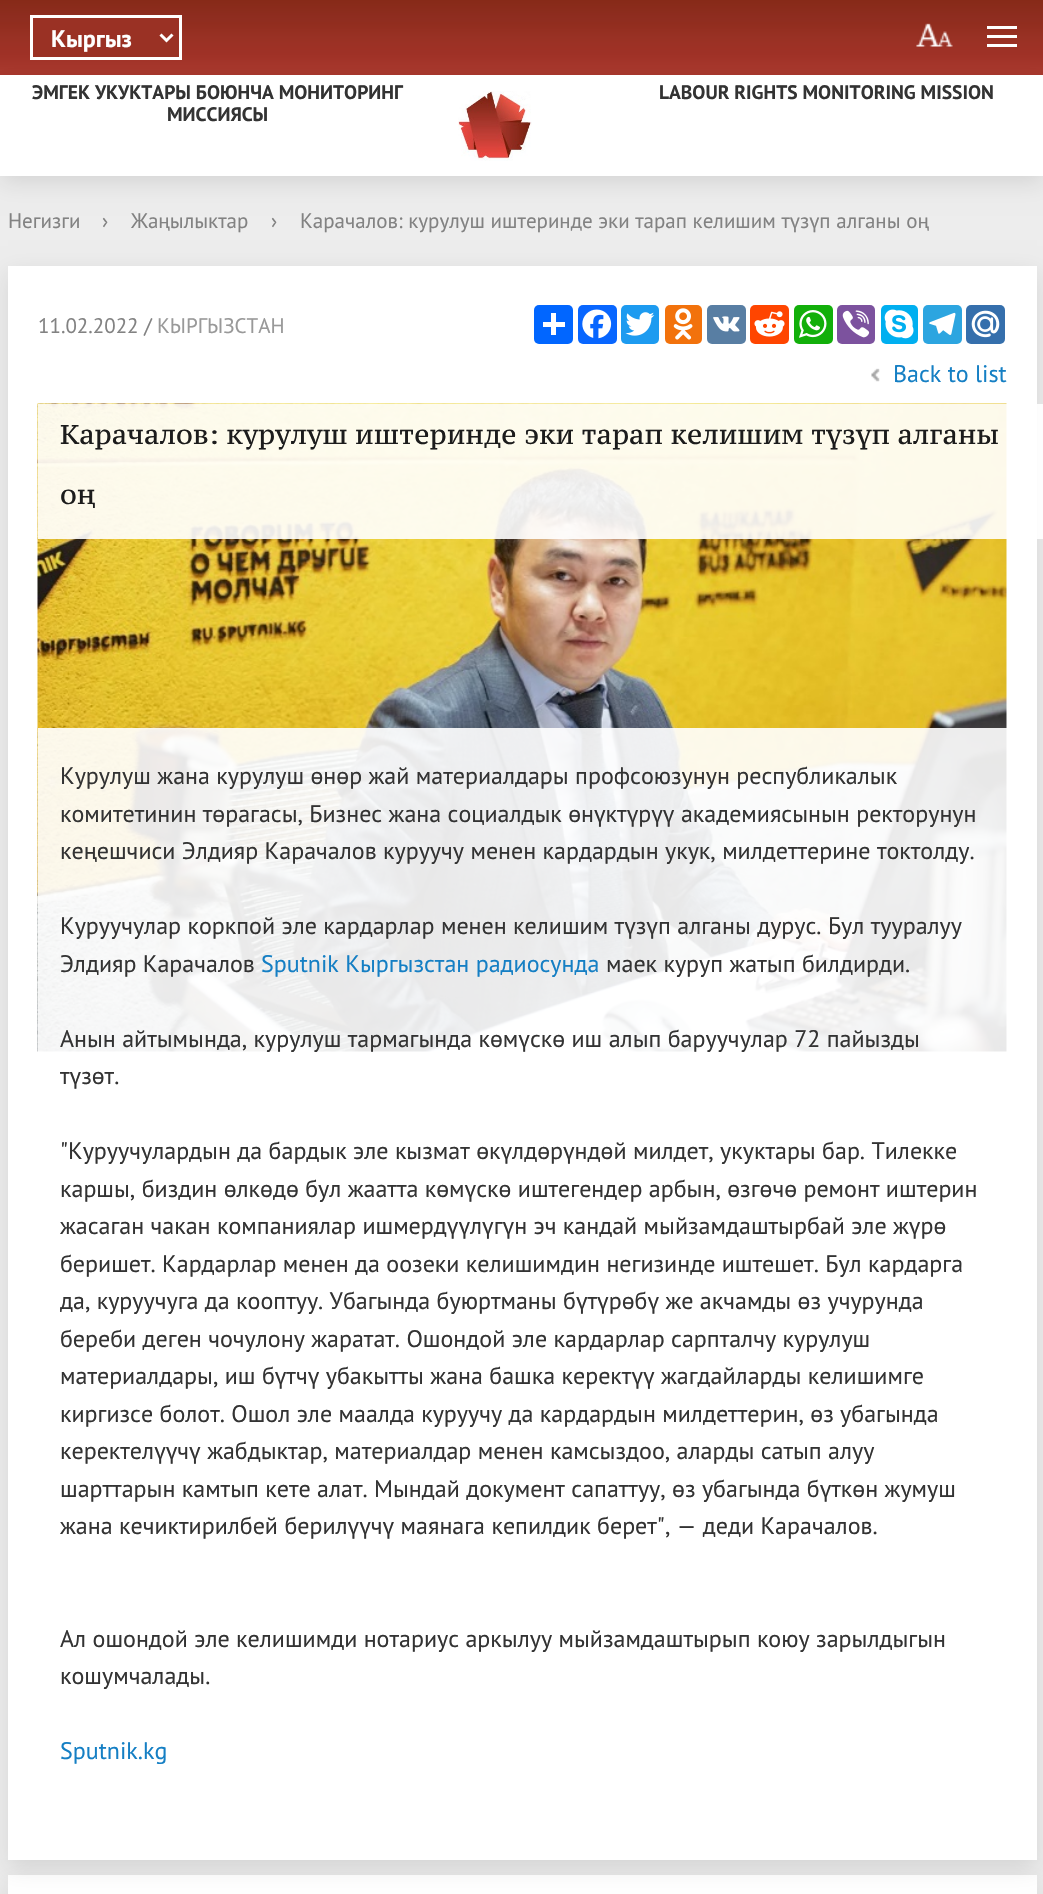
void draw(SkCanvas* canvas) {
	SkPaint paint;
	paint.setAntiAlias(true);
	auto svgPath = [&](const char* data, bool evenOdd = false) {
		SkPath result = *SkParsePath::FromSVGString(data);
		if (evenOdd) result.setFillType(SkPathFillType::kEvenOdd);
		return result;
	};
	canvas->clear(0xffededed);
	{
		const SkColor colors[] = {0xff872a18, 0xff8f2d20, 0xff912d1e, 0xff993124, 0xffa03126, 0xffa8382d, 0xffa9372d};
		const float stops[] = {0, 0.25, 0.31, 0.5, 0.72, 0.94, 1};
		const SkPoint ends[] = {{522, 0}, {522, 75}};
		paint.setShader(SkGradientShader::MakeLinear(ends, colors, stops, 7, SkTileMode::kClamp));
		paint.setAlpha(255);
	}
	canvas->drawRect(SkRect::MakeXYWH(0, 0, 1043, 75), paint);
	paint.setShader(nullptr);
	paint.setColor(0xffffffff);
	canvas->drawRect(SkRect::MakeXYWH(987, 35, 30, 3), paint);
	canvas->drawRect(SkRect::MakeXYWH(987, 26, 30, 3), paint);
	canvas->drawRect(SkRect::MakeXYWH(987, 44, 30, 3), paint);
	paint.setColor(0x1a000000);
	paint.setMaskFilter(SkMaskFilter::MakeBlur(kNormal_SkBlurStyle, 11));
	canvas->drawRect(SkRect::MakeXYWH(0, 83, 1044, 100), paint);
	paint.setMaskFilter(nullptr);
	paint.setColor(0xff9a3124);
	canvas->drawRect(SkRect::MakeXYWH(31.5, 16.5, 149, 42), paint);
	paint.setStroke(true);
	paint.setStrokeWidth(3);
	paint.setColor(0xffffffff);
	canvas->drawRect(SkRect::MakeXYWH(31.5, 16.5, 149, 42), paint);
	canvas->drawPath(svgPath("M160.5 34.5L166.5 40.5L172.5 34.5"), paint);
	SkFont f1(fontMgr->matchFamilyStyle("PT Sans", SkFontStyle::Bold()), 24);
	f1.setSubpixel(true);
	paint.setStroke(false);
	canvas->drawString("Кыргыз", 51, 47, f1, paint);
	canvas->drawImageRect(SkImages::DeferredFromEncodedData(SkData::MakeFromFileName("img1.png")), SkRect::MakeXYWH(916, 23, 37, 24), SkSamplingOptions());
	canvas->drawRect(SkRect::MakeXYWH(0, 75, 1043, 101), paint);
	SkFont f2(fontMgr->matchFamilyStyle("PT Sans", SkFontStyle::Bold()), 19.5);
	f2.setSubpixel(true);
	paint.setColor(0xff333333);
	canvas->drawString("ЭМГЕК УКУКТАРЫ БОЮНЧА МОНИТОРИНГ", 32, 99, f2, paint);
	canvas->drawString("МИССИЯСЫ", 167, 121, f2, paint);
	canvas->drawImageRect(SkImages::DeferredFromEncodedData(SkData::MakeFromFileName("img2.png")), SkRect::MakeXYWH(458, 91, 74, 70), SkSamplingOptions());
	canvas->drawString("LABOUR RIGHTS MONITORING MISSION", 659, 99, f2, paint);
	SkFont f3(fontMgr->matchFamilyStyle("PT Sans", SkFontStyle::Normal()), 21);
	f3.setSubpixel(true);
	paint.setColor(0xff828282);
	canvas->drawString("Негизги", 8, 228, f3, paint);
	canvas->drawString("›", 102, 228, f3, paint);
	canvas->drawString("Жаңылыктар", 131, 228, f3, paint);
	canvas->drawString("›", 271, 228, f3, paint);
	canvas->drawString("Карачалов: курулуш иштеринде эки тарап келишим түзүп алганы оң", 300, 228, f3, paint);
	paint.setColor(0x1a000000);
	paint.setMaskFilter(SkMaskFilter::MakeBlur(kNormal_SkBlurStyle, 11));
	canvas->drawRect(SkRect::MakeXYWH(8, 1883, 1029, 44), paint);
	paint.setMaskFilter(nullptr);
	paint.setColor(0xffffffff);
	canvas->drawRect(SkRect::MakeXYWH(8, 1875, 1029, 19), paint);
	paint.setColor(0x1a000000);
	paint.setMaskFilter(SkMaskFilter::MakeBlur(kNormal_SkBlurStyle, 11));
	canvas->drawRect(SkRect::MakeXYWH(8, 273, 1029, 1595), paint);
	paint.setMaskFilter(nullptr);
	paint.setColor(0xffffffff);
	canvas->drawRect(SkRect::MakeXYWH(8, 266, 1029, 1594), paint);
	paint.setColor(0xff828282);
	canvas->drawString("11.02.2022 /", 38, 333, f3, paint);
	paint.setColor(0xff999999);
	canvas->drawString("КЫРГЫЗСТАН", 157, 333, f3, paint);
	paint.setColor(0xff0166ff);
	canvas->drawRoundRect(SkRect::MakeXYWH(534, 305, 39, 39), 5, 5, paint);
	paint.setColor(0xffffffff);
	canvas->drawRect(SkRect::MakeXYWH(551, 313, 5, 22), paint);
	canvas->drawRect(SkRect::MakeXYWH(543, 322, 22, 5), paint);
	paint.setColor(0xff0866ff);
	canvas->drawRoundRect(SkRect::MakeXYWH(578, 305, 39, 39), 5, 5, paint);
	canvas->drawImageRect(SkImages::DeferredFromEncodedData(SkData::MakeFromFileName("img3.png")), SkRect::MakeXYWH(582, 309, 30, 30), SkSamplingOptions());
	paint.setColor(0xff1d9bf0);
	canvas->drawRoundRect(SkRect::MakeXYWH(621, 305, 38, 39), 5, 5, paint);
	canvas->drawImageRect(SkImages::DeferredFromEncodedData(SkData::MakeFromFileName("img4.png")), SkRect::MakeXYWH(625, 312, 30, 24), SkSamplingOptions());
	paint.setColor(0xfff2720c);
	canvas->drawRoundRect(SkRect::MakeXYWH(665, 305, 37, 39), 5, 5, paint);
	canvas->drawImageRect(SkImages::DeferredFromEncodedData(SkData::MakeFromFileName("img5.png")), SkRect::MakeXYWH(673, 308, 20, 32), SkSamplingOptions());
	paint.setColor(0xff587ea3);
	canvas->drawRoundRect(SkRect::MakeXYWH(707, 305, 39, 39), 5, 5, paint);
	canvas->drawImageRect(SkImages::DeferredFromEncodedData(SkData::MakeFromFileName("img6.png")), SkRect::MakeXYWH(713, 316, 27, 16), SkSamplingOptions());
	paint.setColor(0xffff4500);
	canvas->drawRoundRect(SkRect::MakeXYWH(750, 305, 39, 39), 5, 5, paint);
	canvas->drawImageRect(SkImages::DeferredFromEncodedData(SkData::MakeFromFileName("img7.png")), SkRect::MakeXYWH(754, 311, 31, 26), SkSamplingOptions());
	paint.setColor(0xff12af0a);
	canvas->drawRoundRect(SkRect::MakeXYWH(794, 305, 39, 39), 5, 5, paint);
	canvas->drawImageRect(SkImages::DeferredFromEncodedData(SkData::MakeFromFileName("img8.png")), SkRect::MakeXYWH(799, 310, 28, 28), SkSamplingOptions());
	paint.setColor(0xff7c529e);
	canvas->drawRoundRect(SkRect::MakeXYWH(837, 305, 38, 39), 5, 5, paint);
	canvas->drawImageRect(SkImages::DeferredFromEncodedData(SkData::MakeFromFileName("img9.png")), SkRect::MakeXYWH(842, 310, 28, 28), SkSamplingOptions());
	paint.setColor(0xff00aff0);
	canvas->drawRoundRect(SkRect::MakeXYWH(881, 305, 37, 39), 5, 5, paint);
	canvas->drawImageRect(SkImages::DeferredFromEncodedData(SkData::MakeFromFileName("img10.png")), SkRect::MakeXYWH(884, 309, 30, 30), SkSamplingOptions());
	paint.setColor(0xff2ca5e0);
	canvas->drawRoundRect(SkRect::MakeXYWH(923, 305, 39, 39), 5, 5, paint);
	canvas->drawImageRect(SkImages::DeferredFromEncodedData(SkData::MakeFromFileName("img11.png")), SkRect::MakeXYWH(929, 312, 27, 23), SkSamplingOptions());
	paint.setColor(0xff356fac);
	canvas->drawRoundRect(SkRect::MakeXYWH(966, 305, 39, 39), 5, 5, paint);
	canvas->drawImageRect(SkImages::DeferredFromEncodedData(SkData::MakeFromFileName("img12.png")), SkRect::MakeXYWH(971, 310, 29, 28), SkSamplingOptions());
	canvas->drawImageRect(SkImages::DeferredFromEncodedData(SkData::MakeFromFileName("img13.png")), SkRect::MakeXYWH(871, 368, 9, 14), SkSamplingOptions());
	SkFont f4(fontMgr->matchFamilyStyle("PT Sans", SkFontStyle::Normal()), 24);
	f4.setSubpixel(true);
	paint.setColor(0xff157fc4);
	canvas->drawString("Back to list", 893, 382, f4, paint);
	canvas->drawImageRect(SkImages::DeferredFromEncodedData(SkData::MakeFromFileName("img14.png")), SkRect::MakeXYWH(37, 403, 970, 649), SkSamplingOptions());
	paint.setColor(0xe6ffffff);
	canvas->drawRect(SkRect::MakeXYWH(38, 404, 1005, 135), paint);
	SkFont f5(fontMgr->matchFamilyStyle("PT Serif Caption", SkFontStyle::Normal()), 27);
	f5.setSubpixel(true);
	paint.setColor(0xff1c1c1c);
	canvas->drawString("Карачалов: курулуш иштеринде эки тарап келишим түзүп алганы", 60, 444, f5, paint);
	canvas->drawString("оң", 60, 504, f5, paint);
	paint.setColor(0xe6ffffff);
	canvas->drawRect(SkRect::MakeXYWH(38, 728, 969, 324), paint);
	paint.setColor(0xff333333);
	canvas->drawString("Курулуш жана курулуш өнөр жай материалдары профсоюзунун республикалык", 60, 784, f4, paint);
	canvas->drawString("комитетинин төрагасы, Бизнес жана социалдык өнүктүрүү академиясынын ректорунун", 60, 822, f4, paint);
	canvas->drawString("кеңешчиси Элдияр Карачалов куруучу менен кардардын укук, милдеттерине токтолду.", 60, 859, f4, paint);
	canvas->drawString("Куруучулар коркпой эле кардарлар менен келишим түзүп алганы дурус. Бул тууралуу", 60, 934, f4, paint);
	canvas->drawString("Элдияр Карачалов", 60, 972, f4, paint);
	paint.setColor(0xff157fc4);
	canvas->drawString("Sputnik Кыргызстан радиосунда", 261, 972, f4, paint);
	paint.setColor(0xff333333);
	canvas->drawString("маек куруп жатып билдирди.", 606, 972, f4, paint);
	canvas->drawString("Анын айтымында, курулуш тармагында көмүскө иш алып баруучулар 72 пайызды", 60, 1047, f4, paint);
	canvas->drawString("түзөт.", 60, 1084, f4, paint);
	canvas->drawString("\"Куруучулардын да бардык эле кызмат өкүлдөрүндөй милдет, укуктары бар. Тилекке", 60, 1159, f4, paint);
	canvas->drawString("каршы, биздин өлкөдө бул жаатта көмүскө иштегендер арбын, өзгөчө ремонт иштерин", 60, 1197, f4, paint);
	canvas->drawString("жасаган чакан компаниялар ишмердүүлүгүн эч кандай мыйзамдаштырбай эле жүрө", 60, 1234, f4, paint);
	canvas->drawString("беришет. Кардарлар менен да оозеки келишимдин негизинде иштешет. Бул кардарга", 60, 1272, f4, paint);
	canvas->drawString("да, куруучуга да кооптуу. Убагында буюртманы бүтүрөбү же акчамды өз учурунда", 60, 1309, f4, paint);
	canvas->drawString("береби деген чочулону жаратат. Ошондой эле кардарлар сарпталчу курулуш", 60, 1347, f4, paint);
	canvas->drawString("материалдары, иш бүтчү убакытты жана башка керектүү жагдайларды келишимге", 60, 1384, f4, paint);
	canvas->drawString("киргизсе болот. Ошол эле маалда куруучу да кардардын милдеттерин, өз убагында", 60, 1422, f4, paint);
	canvas->drawString("керектелүүчү жабдыктар, материалдар менен камсыздоо, аларды сатып алуу", 60, 1459, f4, paint);
	canvas->drawString("шарттарын камтып кете алат. Мындай документ сапаттуу, өз убагында бүткөн жумуш", 60, 1497, f4, paint);
	canvas->drawString("жана кечиктирилбей берилүүчү маянага кепилдик берет\", — деди Карачалов.", 60, 1534, f4, paint);
	canvas->drawString("Ал ошондой эле келишимди нотариус аркылуу мыйзамдаштырып коюу зарылдыгын", 60, 1647, f4, paint);
	canvas->drawString("кошумчалады.", 60, 1684, f4, paint);
	paint.setColor(0xff157fc4);
	canvas->drawString("Sputnik.kg", 60, 1759, f4, paint);
}
